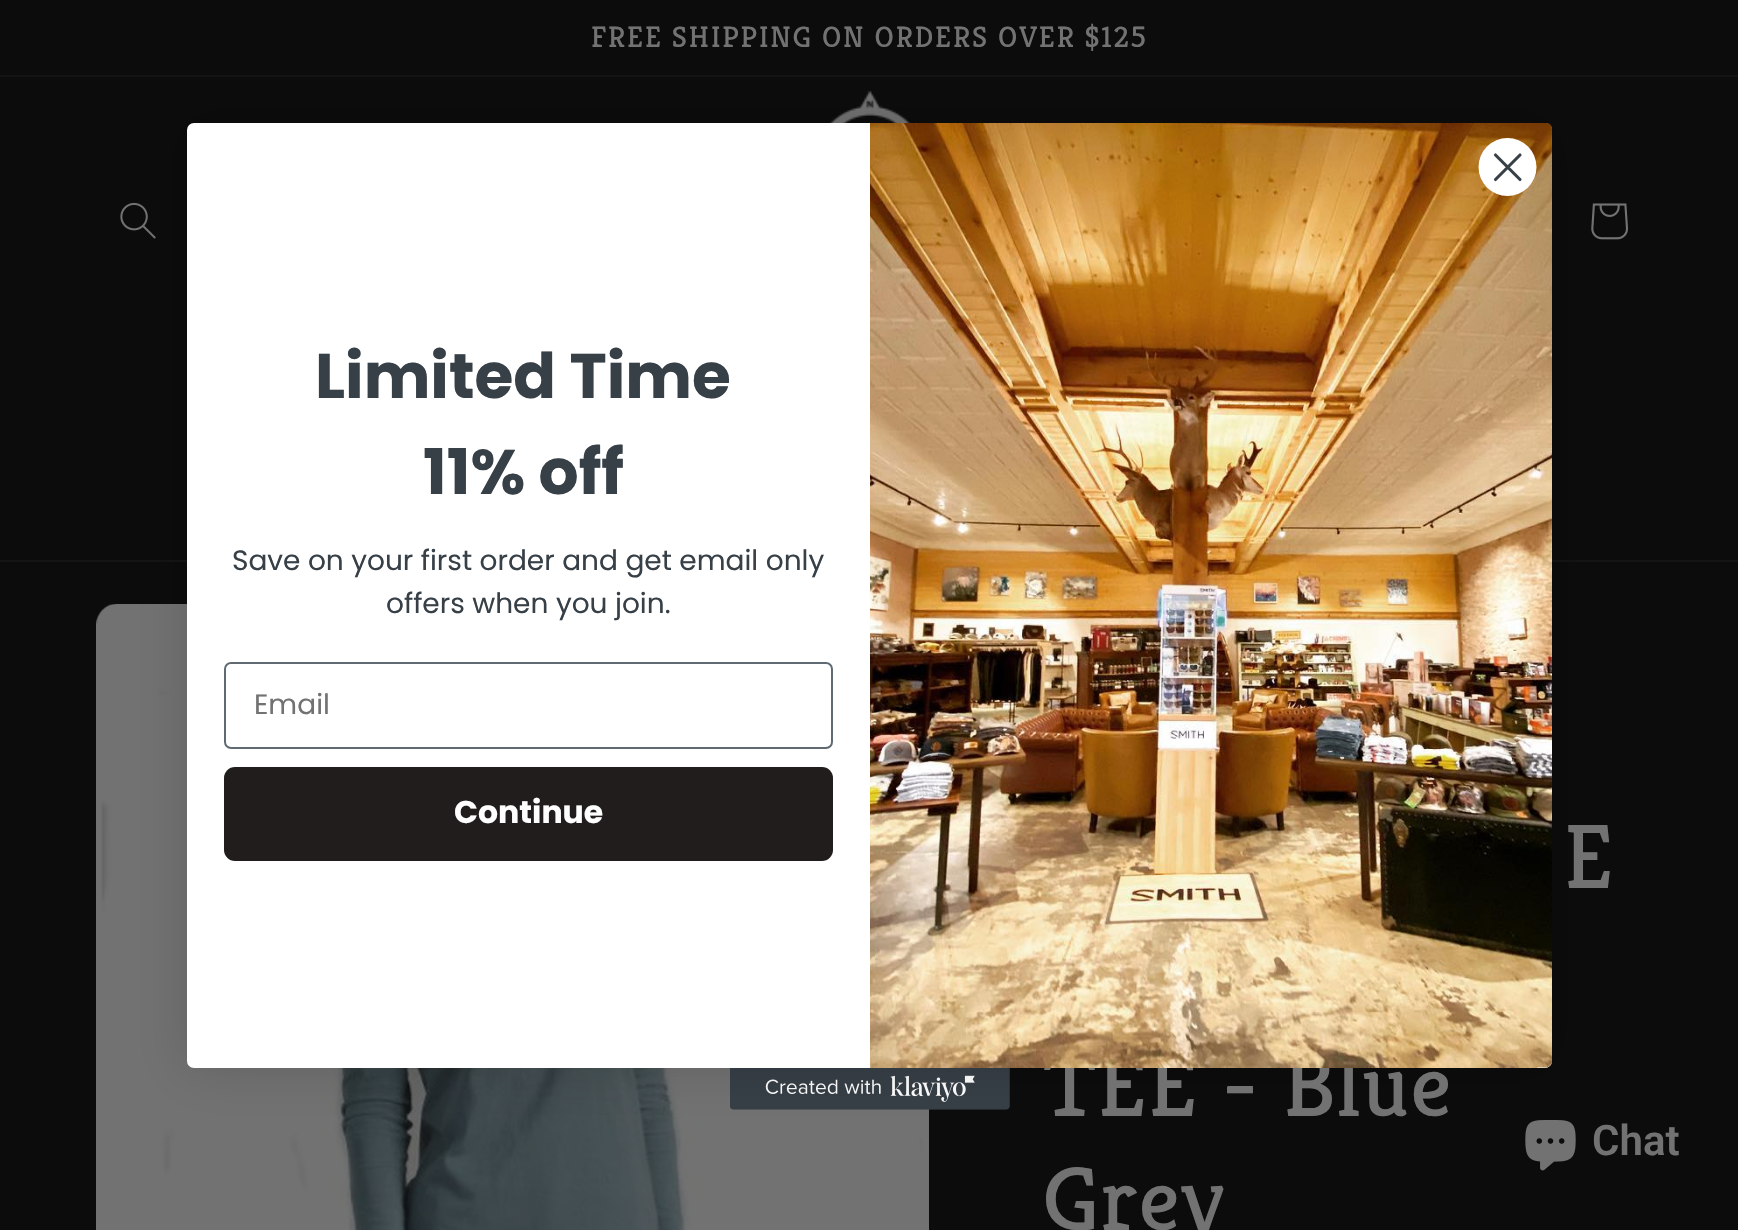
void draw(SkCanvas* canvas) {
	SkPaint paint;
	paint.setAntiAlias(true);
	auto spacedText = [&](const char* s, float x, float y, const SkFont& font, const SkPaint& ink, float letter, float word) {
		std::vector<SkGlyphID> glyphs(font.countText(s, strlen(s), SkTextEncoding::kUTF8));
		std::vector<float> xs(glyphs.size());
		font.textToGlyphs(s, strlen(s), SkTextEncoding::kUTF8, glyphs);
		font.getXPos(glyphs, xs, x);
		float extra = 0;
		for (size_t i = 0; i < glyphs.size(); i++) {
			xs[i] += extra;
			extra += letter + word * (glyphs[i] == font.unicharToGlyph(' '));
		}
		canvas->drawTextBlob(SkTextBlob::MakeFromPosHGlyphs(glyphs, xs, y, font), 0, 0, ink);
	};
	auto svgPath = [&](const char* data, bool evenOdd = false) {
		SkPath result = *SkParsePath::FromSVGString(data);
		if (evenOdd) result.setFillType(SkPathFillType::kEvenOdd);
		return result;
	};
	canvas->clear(0xff0c0c0c);
	paint.setColor(0xff141414);
	canvas->drawRect(SkRect::MakeXYWH(0, 75, 1738, 2), paint);
	SkFont f1(fontMgr->matchFamilyStyle("Kreon", SkFontStyle::Normal()), 29.6);
	f1.setSubpixel(true);
	paint.setColor(0xff727272);
	spacedText("FREE SHIPPING ON ORDERS OVER $125", 591, 47, f1, paint, 1.9, 0);
	paint.setColor(0xff141414);
	canvas->drawRect(SkRect::MakeXYWH(0, 560, 1738, 2), paint);
	canvas->drawImageRect(SkImages::DeferredFromEncodedData(SkData::MakeFromFileName("img1.png")), SkRect::MakeXYWH(829, 91, 82, 32), SkSamplingOptions());
	canvas->drawImageRect(SkImages::DeferredFromEncodedData(SkData::MakeFromFileName("img2.png")), SkRect::MakeXYWH(120, 202, 36, 37), SkSamplingOptions());
	canvas->drawImageRect(SkImages::DeferredFromEncodedData(SkData::MakeFromFileName("img3.png")), SkRect::MakeXYWH(1591, 203, 37, 37), SkSamplingOptions());
	canvas->drawImageRect(SkImages::DeferredFromEncodedData(SkData::MakeFromFileName("img6.png")), SkRect::MakeXYWH(96, 604, 833, 626), SkSamplingOptions());
	canvas->drawImageRect(SkImages::DeferredFromEncodedData(SkData::MakeFromFileName("img5.png")), SkRect::MakeXYWH(730, 1068, 280, 42), SkSamplingOptions());
	canvas->drawImageRect(SkImages::DeferredFromEncodedData(SkData::MakeFromFileName("img7.png")), SkRect::MakeXYWH(1525, 1120, 51, 51), SkSamplingOptions());
	paint.setColor(0x26000000);
	paint.setMaskFilter(SkMaskFilter::MakeBlur(kNormal_SkBlurStyle, 26));
	canvas->drawRoundRect(SkRect::MakeXYWH(187, 123, 1365, 945), 7, 7, paint);
	paint.setMaskFilter(nullptr);
	SkFont f2(fontMgr->matchFamilyStyle("Kreon", SkFontStyle::Normal()), 91);
	f2.setSubpixel(true);
	paint.setColor(0xff727272);
	spacedText("TEE - Blue", 1043, 1116, f2, paint, 1.4, 0);
	paint.setColor(0xffffffff);
	canvas->drawRoundRect(SkRect::MakeXYWH(187, 123, 1365, 945), 7, 7, paint);
	canvas->drawImageRect(SkImages::DeferredFromEncodedData(SkData::MakeFromFileName("img4.png")), SkRect::MakeXYWH(870, 123, 682, 945), SkSamplingOptions());
	canvas->drawCircle(1507.5, 167, 29, paint);
	paint.setStroke(true);
	paint.setStrokeWidth(3.1);
	paint.setStrokeCap(SkPaint::kRound_Cap);
	paint.setStrokeJoin(SkPaint::kRound_Join);
	paint.setColor(0xff373f47);
	canvas->drawPath(svgPath("M1495.5 155L1520 179.5M1495.5 179.5L1520 155Z"), paint);
	SkFont f3(fontMgr->matchFamilyStyle("Poppins", SkFontStyle::Bold()), 63);
	f3.setSubpixel(true);
	paint.setStroke(false);
	canvas->drawString("Limited Time", 315, 398, f3, paint);
	canvas->drawString("11% off", 423, 494, f3, paint);
	SkFont f4(fontMgr->matchFamilyStyle("Poppins", SkFontStyle::Normal()), 28);
	f4.setSubpixel(true);
	canvas->drawString("Save on your first order and get email only", 232, 570, f4, paint);
	canvas->drawString("offers when you join.", 386, 613, f4, paint);
	paint.setStroke(true);
	paint.setStrokeWidth(2);
	paint.setStrokeCap(SkPaint::kButt_Cap);
	paint.setStrokeJoin(SkPaint::kMiter_Join);
	paint.setColor(0xff606a72);
	canvas->drawRoundRect(SkRect::MakeXYWH(225, 663, 607, 85), 6, 6, paint);
	paint.setStroke(false);
	paint.setColor(0xff727272);
	canvas->drawString("Email", 254, 714, f4, paint);
	paint.setColor(0xff211d1c);
	canvas->drawRoundRect(SkRect::MakeXYWH(224, 767, 609, 94), 11, 11, paint);
	SkFont f5(fontMgr->matchFamilyStyle("Poppins", SkFontStyle::Bold()), 31.5);
	f5.setSubpixel(true);
	paint.setColor(0xffffffff);
	canvas->drawString("Continue", 454, 823, f5, paint);
	paint.setColor(0xff727272);
	spacedText("E", 1564, 888, f2, paint, 1.4, 0);
	spacedText("Grey", 1043, 1230, f2, paint, 1.4, 0);
	SkFont f6(fontMgr->matchFamilyStyle("Roboto", SkFontStyle(600, SkFontStyle::kNormal_Width, SkFontStyle::kUpright_Slant)), 42);
	f6.setSubpixel(true);
	canvas->drawString("Chat", 1592, 1155, f6, paint);
}
